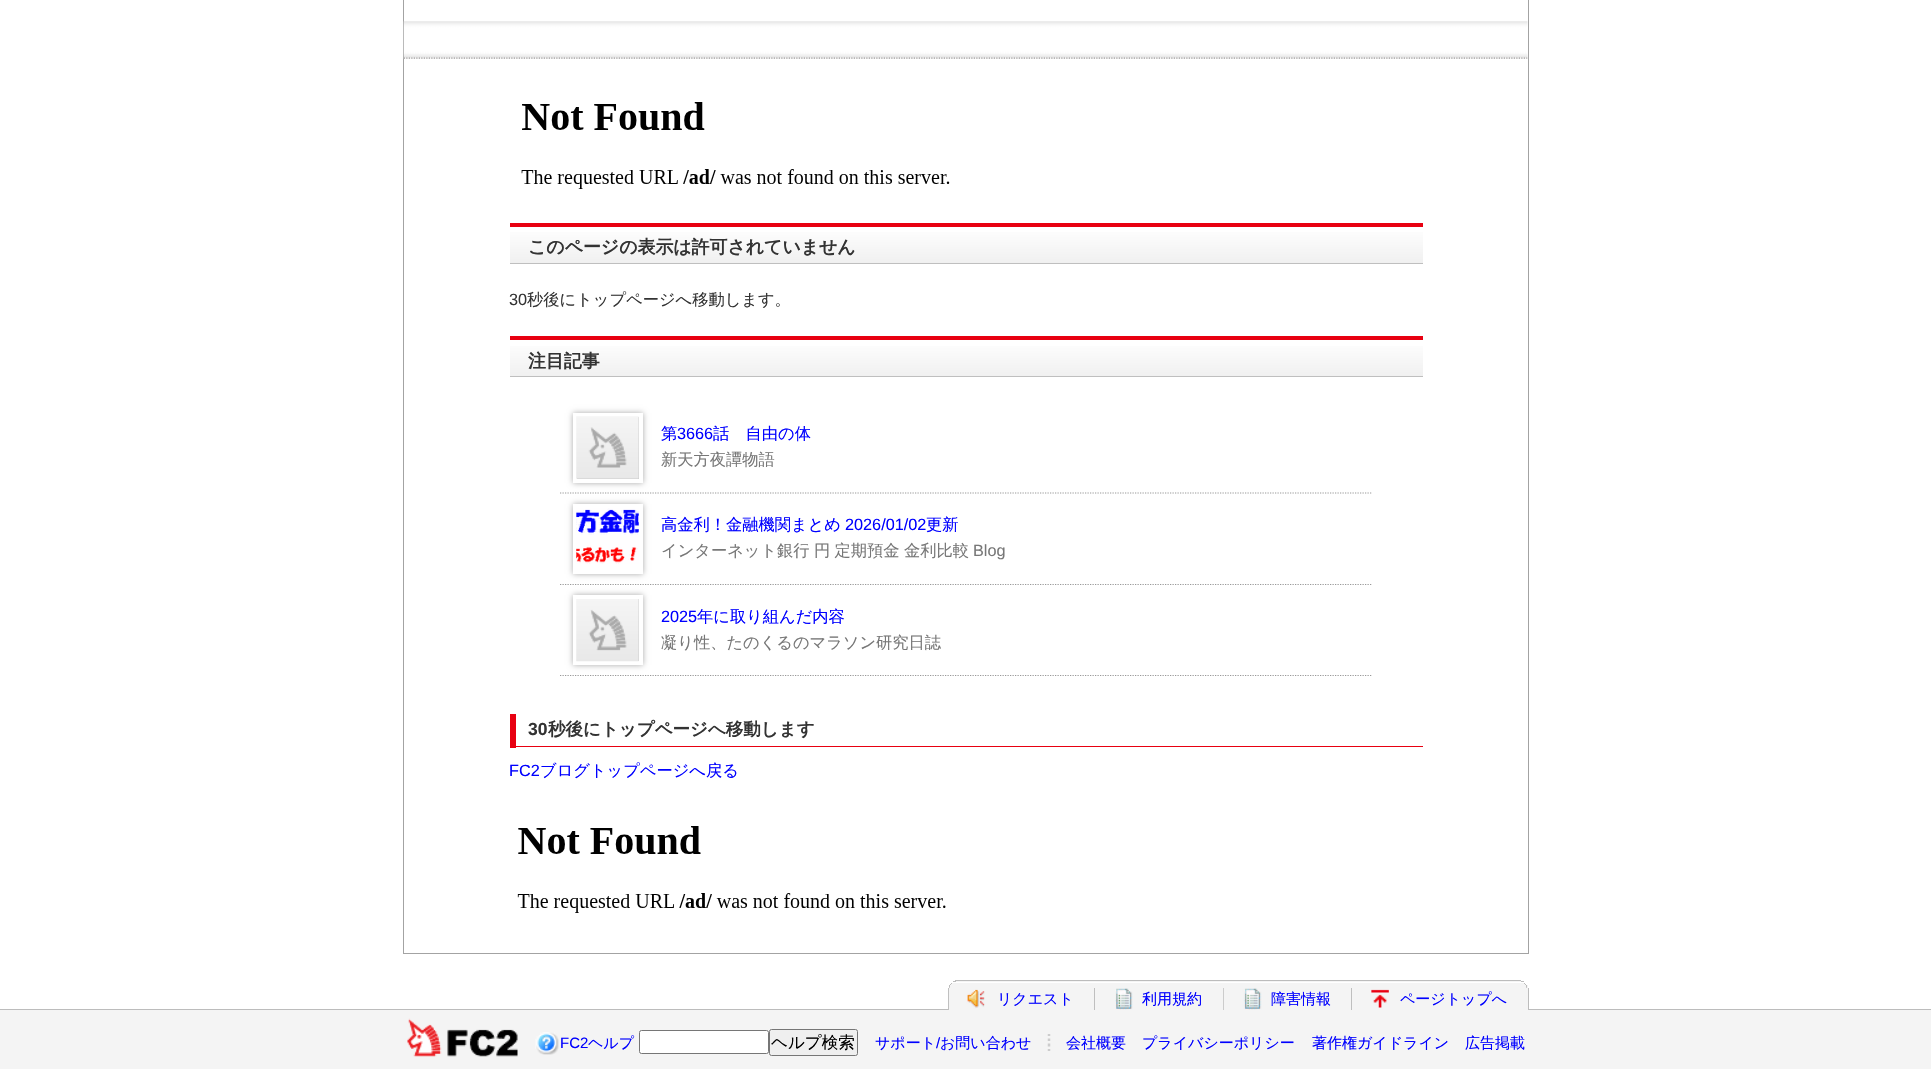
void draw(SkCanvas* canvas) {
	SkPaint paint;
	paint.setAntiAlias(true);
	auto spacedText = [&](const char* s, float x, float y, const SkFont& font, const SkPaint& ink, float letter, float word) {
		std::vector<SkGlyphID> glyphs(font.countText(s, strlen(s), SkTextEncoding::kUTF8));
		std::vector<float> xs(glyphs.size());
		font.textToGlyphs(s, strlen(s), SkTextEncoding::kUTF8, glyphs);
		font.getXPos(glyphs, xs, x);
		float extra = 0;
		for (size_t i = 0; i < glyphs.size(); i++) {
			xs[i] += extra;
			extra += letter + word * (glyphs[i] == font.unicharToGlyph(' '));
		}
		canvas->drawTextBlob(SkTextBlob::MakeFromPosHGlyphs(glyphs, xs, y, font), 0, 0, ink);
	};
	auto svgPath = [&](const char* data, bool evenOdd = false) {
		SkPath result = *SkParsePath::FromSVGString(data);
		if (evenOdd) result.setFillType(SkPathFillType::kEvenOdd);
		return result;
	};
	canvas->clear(0xffffffff);
	paint.setStroke(true);
	paint.setStrokeWidth(1);
	paint.setColor(0xffa3a3a3);
	canvas->drawRect(SkRect::MakeXYWH(403.5, -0.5, 1125, 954), paint);
	canvas->drawImageRect(SkImages::DeferredFromEncodedData(SkData::MakeFromFileName("img1.png")), SkRect::MakeXYWH(403, 21, 1125, 38), SkSamplingOptions());
	canvas->drawImageRect(SkImages::DeferredFromEncodedData(SkData::MakeFromFileName("img2.png")), SkRect::MakeXYWH(521, 102, 429, 87), SkSamplingOptions());
	paint.setStroke(false);
	{
		const SkColor colors[] = {0xffffffff, 0xfff0f0f0};
		const float stops[] = {0, 1};
		const SkPoint ends[] = {{510, 226}, {510, 263}};
		paint.setShader(SkGradientShader::MakeLinear(ends, colors, stops, 2, SkTileMode::kClamp));
		paint.setAlpha(255);
	}
	canvas->drawRect(SkRect::MakeXYWH(510, 232, 913, 31), paint);
	paint.setShader(nullptr);
	paint.setColor(0xffe80011);
	canvas->drawRect(SkRect::MakeXYWH(510, 223, 913, 4), paint);
	paint.setColor(0xffbfbfbf);
	canvas->drawRect(SkRect::MakeXYWH(510, 263, 913, 1), paint);
	SkFont f1(fontMgr->matchFamilyStyle("WenQuanYi Zen Hei", SkFontStyle::Bold()), 17.9);
	f1.setSubpixel(true);
	paint.setColor(0xff333333);
	canvas->drawString("このページの表示は許可されていません", 528, 253, f1, paint);
	SkFont f2(fontMgr->matchFamilyStyle("Liberation Sans", SkFontStyle::Normal()), 16.25);
	f2.setSubpixel(true);
	canvas->drawString("30", 509, 305, f2, paint);
	SkFont f3(fontMgr->matchFamilyStyle("WenQuanYi Zen Hei", SkFontStyle(500, SkFontStyle::kNormal_Width, SkFontStyle::kUpright_Slant)), 16.25);
	f3.setSubpixel(true);
	canvas->drawString("秒後にトップページへ移動します。", 527, 305, f3, paint);
	{
		const SkColor colors[] = {0xffffffff, 0xfff0f0f0};
		const float stops[] = {0, 1};
		const SkPoint ends[] = {{510, 340}, {510, 376}};
		paint.setShader(SkGradientShader::MakeLinear(ends, colors, stops, 2, SkTileMode::kClamp));
		paint.setAlpha(255);
	}
	canvas->drawRect(SkRect::MakeXYWH(510, 346, 913, 30), paint);
	paint.setShader(nullptr);
	paint.setColor(0xffe80011);
	canvas->drawRect(SkRect::MakeXYWH(510, 336, 913, 4), paint);
	paint.setColor(0xffbfbfbf);
	canvas->drawRect(SkRect::MakeXYWH(510, 376, 913, 1), paint);
	paint.setColor(0xff333333);
	canvas->drawString("注目記事", 528, 367, f1, paint);
	paint.setStroke(true);
	paint.setStrokeWidth(1.2);
	paint.setColor(0xff999999);
	paint.setPathEffect(SkDashPathEffect::Make({{1.25f, 1.25f}}, 0));
	canvas->drawPath(svgPath("M560 493H1372.5"), paint);
	paint.setPathEffect(nullptr);
	paint.setStroke(false);
	paint.setColor(0xffaaaaaa);
	paint.setMaskFilter(SkMaskFilter::MakeBlur(kNormal_SkBlurStyle, 3));
	canvas->drawRect(SkRect::MakeXYWH(573, 413, 70, 70), paint);
	paint.setMaskFilter(nullptr);
	paint.setStroke(true);
	paint.setStrokeWidth(4);
	paint.setColor(0xffffffff);
	canvas->drawRect(SkRect::MakeXYWH(575, 415, 66, 66), paint);
	canvas->drawImageRect(SkImages::DeferredFromEncodedData(SkData::MakeFromFileName("img3.png")), SkRect::MakeXYWH(576, 416, 63, 63), SkSamplingOptions());
	paint.setStroke(false);
	paint.setColor(0xff0000ff);
	canvas->drawString("第", 661, 439, f3, paint);
	canvas->drawString("3666", 677, 439, f2, paint);
	canvas->drawString("話　自由の体", 713, 439, f3, paint);
	paint.setColor(0xff777777);
	canvas->drawString("新天方夜譚物語", 661, 465, f3, paint);
	paint.setStroke(true);
	paint.setStrokeWidth(1.2);
	paint.setColor(0xff999999);
	paint.setPathEffect(SkDashPathEffect::Make({{1.25f, 1.25f}}, 0));
	canvas->drawPath(svgPath("M560 584.5H1372.5"), paint);
	paint.setPathEffect(nullptr);
	canvas->save();
	canvas->clipPath(svgPath("M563 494H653V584H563ZM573 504H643V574H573Z", true), true);
	paint.setStroke(false);
	paint.setColor(0xffaaaaaa);
	paint.setMaskFilter(SkMaskFilter::MakeBlur(kNormal_SkBlurStyle, 3));
	canvas->drawRect(SkRect::MakeXYWH(573, 504, 70, 70), paint);
	paint.setMaskFilter(nullptr);
	canvas->restore();
	paint.setStroke(true);
	paint.setStrokeWidth(4);
	paint.setColor(0xffffffff);
	canvas->drawRect(SkRect::MakeXYWH(575, 506, 66, 66), paint);
	canvas->drawImageRect(SkImages::DeferredFromEncodedData(SkData::MakeFromFileName("img4.png")), SkRect::MakeXYWH(576, 508, 63, 56), SkSamplingOptions());
	paint.setStroke(false);
	paint.setColor(0xff0000ff);
	canvas->drawString("高金利！金融機関まとめ", 661, 530, f3, paint);
	canvas->drawString("2026/01/02", 845, 530, f2, paint);
	canvas->drawString("更新", 926, 530, f3, paint);
	paint.setColor(0xff777777);
	spacedText("インターネット銀行 円 定期預金 金利比較", 661, 556, f3, paint, 0, -0.5);
	canvas->drawString("Blog", 973, 556, f2, paint);
	paint.setStroke(true);
	paint.setStrokeWidth(1.2);
	paint.setColor(0xff999999);
	paint.setPathEffect(SkDashPathEffect::Make({{1.25f, 1.25f}}, 0));
	canvas->drawPath(svgPath("M560 675.5H1372.5"), paint);
	paint.setPathEffect(nullptr);
	paint.setStroke(false);
	paint.setColor(0xffaaaaaa);
	paint.setMaskFilter(SkMaskFilter::MakeBlur(kNormal_SkBlurStyle, 3));
	canvas->drawRect(SkRect::MakeXYWH(573, 595, 70, 70), paint);
	paint.setMaskFilter(nullptr);
	paint.setStroke(true);
	paint.setStrokeWidth(4);
	paint.setColor(0xffffffff);
	canvas->drawRect(SkRect::MakeXYWH(575, 597, 66, 66), paint);
	canvas->drawImageRect(SkImages::DeferredFromEncodedData(SkData::MakeFromFileName("img5.png")), SkRect::MakeXYWH(576, 599, 63, 63), SkSamplingOptions());
	paint.setStroke(false);
	paint.setColor(0xff0000ff);
	canvas->drawString("2025", 661, 622, f2, paint);
	canvas->drawString("年に取り組んだ内容", 697, 622, f3, paint);
	paint.setColor(0xff777777);
	canvas->drawString("凝り性、たのくるのマラソン研究日誌", 661, 648, f3, paint);
	paint.setColor(0xffe80011);
	canvas->drawRect(SkRect::MakeXYWH(510, 746, 913, 1), paint);
	canvas->drawRect(SkRect::MakeXYWH(510, 714, 6, 34), paint);
	SkFont f4(fontMgr->matchFamilyStyle("Liberation Sans", SkFontStyle::Bold()), 17.5);
	f4.setSubpixel(true);
	paint.setColor(0xff333333);
	canvas->drawString("30", 528, 735, f4, paint);
	SkFont f5(fontMgr->matchFamilyStyle("WenQuanYi Zen Hei", SkFontStyle::Bold()), 17.5);
	f5.setSubpixel(true);
	canvas->drawString("秒後にトップページへ移動します", 548, 735, f5, paint);
	paint.setColor(0xff0000ff);
	canvas->drawString("FC2", 509, 776, f2, paint);
	canvas->drawString("ブログトップページへ戻る", 540, 776, f3, paint);
	canvas->drawImageRect(SkImages::DeferredFromEncodedData(SkData::MakeFromFileName("img6.png")), SkRect::MakeXYWH(517, 826, 429, 87), SkSamplingOptions());
	paint.setColor(0xffbcbcbc);
	canvas->drawRect(SkRect::MakeXYWH(955, 980, 566, 1), paint);
	paint.setColor(0xfff4f4f4);
	canvas->drawRect(SkRect::MakeXYWH(953, 981, 571, 1), paint);
	paint.setColor(0xffbcbcbc);
	canvas->drawRect(SkRect::MakeXYWH(1521, 981, 3, 1), paint);
	canvas->drawRect(SkRect::MakeXYWH(953, 981, 3, 1), paint);
	paint.setColor(0xfff4f4f4);
	canvas->drawRect(SkRect::MakeXYWH(951, 983, 574, 1), paint);
	paint.setColor(0xffbcbcbc);
	canvas->drawRect(SkRect::MakeXYWH(1524, 983, 1, 1), paint);
	canvas->drawRect(SkRect::MakeXYWH(951, 983, 1, 1), paint);
	paint.setColor(0xfff4f4f4);
	canvas->drawRect(SkRect::MakeXYWH(950, 984, 576, 1), paint);
	paint.setColor(0xffbcbcbc);
	canvas->drawRect(SkRect::MakeXYWH(1525, 984, 1, 1), paint);
	canvas->drawRect(SkRect::MakeXYWH(950, 984, 1, 1), paint);
	paint.setColor(0xfff4f4f4);
	canvas->drawRect(SkRect::MakeXYWH(949, 985, 579, 3), paint);
	paint.setColor(0xffbcbcbc);
	canvas->drawRect(SkRect::MakeXYWH(1526, 985, 1, 3), paint);
	canvas->drawRect(SkRect::MakeXYWH(949, 985, 1, 3), paint);
	canvas->drawRect(SkRect::MakeXYWH(0, 1009, 1931, 1), paint);
	paint.setColor(0xfff4f4f4);
	canvas->drawRect(SkRect::MakeXYWH(985, 988, 543, 22), paint);
	paint.setColor(0xffbcbcbc);
	canvas->drawRect(SkRect::MakeXYWH(1528, 988, 1, 22), paint);
	canvas->drawRect(SkRect::MakeXYWH(948, 988, 1, 22), paint);
	canvas->drawImageRect(SkImages::DeferredFromEncodedData(SkData::MakeFromFileName("img7.png")), SkRect::MakeXYWH(948, 987, 37, 23), SkSamplingOptions());
	paint.setColor(0xffbfbfbf);
	canvas->drawRect(SkRect::MakeXYWH(1094, 988, 1, 22), paint);
	SkFont f6(fontMgr->matchFamilyStyle("WenQuanYi Zen Hei", SkFontStyle(500, SkFontStyle::kNormal_Width, SkFontStyle::kUpright_Slant)), 15);
	f6.setSubpixel(true);
	paint.setColor(0xff0000ff);
	canvas->drawString("リクエスト", 997, 1004, f6, paint);
	canvas->drawImageRect(SkImages::DeferredFromEncodedData(SkData::MakeFromFileName("img8.png")), SkRect::MakeXYWH(1115, 988, 18, 22), SkSamplingOptions());
	paint.setColor(0xffbfbfbf);
	canvas->drawRect(SkRect::MakeXYWH(1223, 988, 1, 22), paint);
	paint.setColor(0xff0000ff);
	canvas->drawString("利用規約", 1142, 1004, f6, paint);
	canvas->drawImageRect(SkImages::DeferredFromEncodedData(SkData::MakeFromFileName("img9.png")), SkRect::MakeXYWH(1223, 988, 39, 22), SkSamplingOptions());
	paint.setColor(0xffbfbfbf);
	canvas->drawRect(SkRect::MakeXYWH(1351, 988, 1, 22), paint);
	paint.setColor(0xff0000ff);
	canvas->drawString("障害情報", 1271, 1004, f6, paint);
	canvas->drawImageRect(SkImages::DeferredFromEncodedData(SkData::MakeFromFileName("img10.png")), SkRect::MakeXYWH(1371, 987, 156, 21), SkSamplingOptions());
	canvas->drawString("ページトップへ", 1400, 1004, f6, paint);
	paint.setColor(0xfff4f4f4);
	canvas->drawRect(SkRect::MakeXYWH(0, 1010, 1931, 59), paint);
	canvas->drawImageRect(SkImages::DeferredFromEncodedData(SkData::MakeFromFileName("img11.png")), SkRect::MakeXYWH(407, 1018, 111, 39), SkSamplingOptions());
	canvas->drawImageRect(SkImages::DeferredFromEncodedData(SkData::MakeFromFileName("img12.png")), SkRect::MakeXYWH(535, 1032, 24, 23), SkSamplingOptions());
	SkFont f7(fontMgr->matchFamilyStyle("Liberation Sans", SkFontStyle::Normal()), 15);
	f7.setSubpixel(true);
	paint.setColor(0xff0000ff);
	canvas->drawString("FC2", 560, 1048, f7, paint);
	canvas->drawString("ヘルプ", 588, 1048, f6, paint);
	paint.setColor(0xffffffff);
	canvas->drawRoundRect(SkRect::MakeXYWH(639.5, 1030.5, 129, 23), 2, 2, paint);
	paint.setStroke(true);
	paint.setStrokeWidth(1);
	paint.setColor(0xff767676);
	canvas->drawRoundRect(SkRect::MakeXYWH(639.5, 1030.5, 129, 23), 2, 2, paint);
	paint.setStroke(false);
	paint.setColor(0xffefefef);
	canvas->drawRoundRect(SkRect::MakeXYWH(769.5, 1029.5, 88, 26), 2, 2, paint);
	paint.setStroke(true);
	paint.setColor(0xff767676);
	canvas->drawRoundRect(SkRect::MakeXYWH(769.5, 1029.5, 88, 26), 2, 2, paint);
	SkFont f8(fontMgr->matchFamilyStyle("WenQuanYi Zen Hei", SkFontStyle(500, SkFontStyle::kNormal_Width, SkFontStyle::kUpright_Slant)), 16.5);
	f8.setSubpixel(true);
	paint.setStroke(false);
	paint.setColor(0xff000000);
	canvas->drawString("ヘルプ検索", 771, 1048, f8, paint);
	paint.setColor(0xff0000ff);
	canvas->drawString("サポート", 875, 1048, f6, paint);
	canvas->drawString("/", 936, 1048, f7, paint);
	canvas->drawString("お問い合わせ", 940, 1048, f6, paint);
	canvas->drawString("会社概要", 1066, 1048, f6, paint);
	paint.setStroke(true);
	paint.setStrokeWidth(2.5);
	paint.setColor(0xffcccccc);
	canvas->drawPath(svgPath("M1049 1034V1036M1049 1038.5V1041M1049 1043.5V1046.5M1049 1049V1051"), paint);
	paint.setStroke(false);
	paint.setColor(0xff0000ff);
	canvas->drawString("プライバシーポリシー", 1142, 1048, f6, paint);
	canvas->drawString("著作権ガイドライン", 1312, 1048, f6, paint);
	canvas->drawString("広告掲載", 1465, 1048, f6, paint);
}
